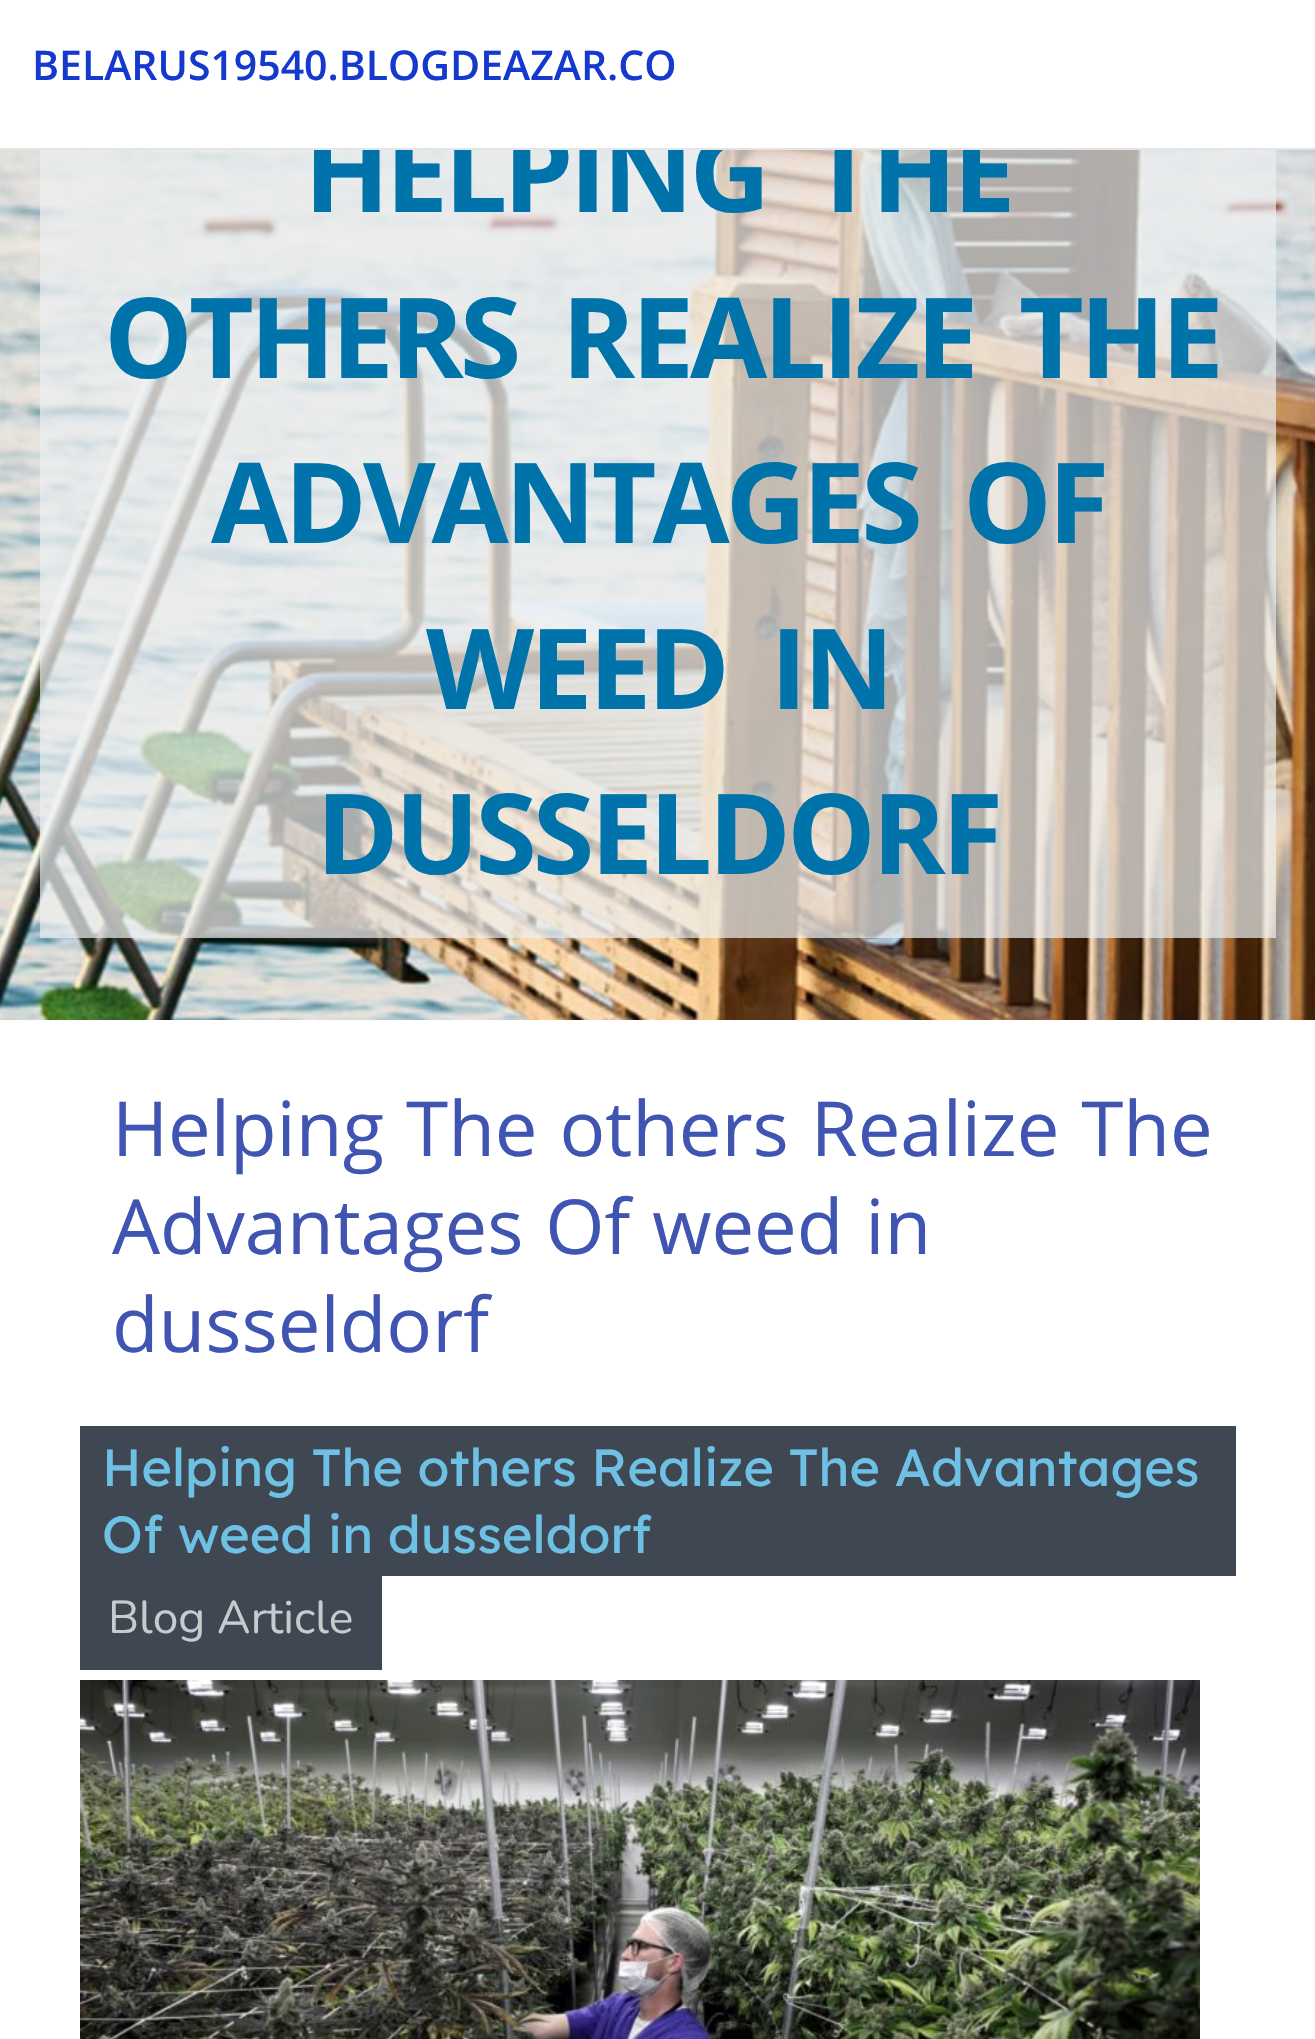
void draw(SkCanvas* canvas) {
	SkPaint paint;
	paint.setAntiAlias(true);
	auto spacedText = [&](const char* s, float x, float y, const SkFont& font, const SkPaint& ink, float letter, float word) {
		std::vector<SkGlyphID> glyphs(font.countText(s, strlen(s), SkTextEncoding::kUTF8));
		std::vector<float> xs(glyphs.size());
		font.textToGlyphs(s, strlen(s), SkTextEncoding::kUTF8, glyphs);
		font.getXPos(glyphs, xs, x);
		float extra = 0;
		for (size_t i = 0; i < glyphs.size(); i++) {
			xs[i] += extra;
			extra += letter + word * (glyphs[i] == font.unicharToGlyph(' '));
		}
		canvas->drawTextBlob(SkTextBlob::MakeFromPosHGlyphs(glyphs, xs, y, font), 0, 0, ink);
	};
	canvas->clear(0xffffffff);
	canvas->drawImageRect(SkImages::DeferredFromEncodedData(SkData::MakeFromFileName("img1.png")), SkRect::MakeXYWH(0, 150, 1315, 870), SkSamplingOptions());
	paint.setColor(0xb3ecf0f1);
	canvas->drawRect(SkRect::MakeXYWH(40, 150, 1236, 788), paint);
	SkFont f1(fontMgr->matchFamilyStyle("Khula", SkFontStyle::Bold()), 120);
	f1.setSubpixel(true);
	paint.setColor(0xff0073aa);
	spacedText("HELPING THE", 304, 212, f1, paint, -4, 16);
	paint.setColor(0xffffffff);
	canvas->drawRect(SkRect::MakeXYWH(314, 131, 696, 17), paint);
	paint.setColor(0xffe5e5e5);
	canvas->drawRect(SkRect::MakeXYWH(0, 148, 1315, 2), paint);
	SkFont f2(fontMgr->matchFamilyStyle("Khula", SkFontStyle(600, SkFontStyle::kNormal_Width, SkFontStyle::kUpright_Slant)), 44);
	f2.setSubpixel(true);
	paint.setColor(0xff1539cf);
	canvas->drawString("BELARUS19540.BLOGDEAZAR.CO", 32, 80, f2, paint);
	paint.setColor(0xff0073aa);
	spacedText("OTHERS REALIZE THE", 104, 378, f1, paint, -4, 16);
	spacedText("ADVANTAGES OF", 211, 543, f1, paint, -4, 16);
	spacedText("WEED IN", 426, 709, f1, paint, -4, 16);
	spacedText("DUSSELDORF", 316, 874, f1, paint, -4, 0);
	SkFont f3(fontMgr->matchFamilyStyle("Khula", SkFontStyle::Normal()), 81.6);
	f3.setSubpixel(true);
	paint.setColor(0xff4054b2);
	canvas->drawString("Helping The others Realize The", 112, 1156, f3, paint);
	canvas->drawString("Advantages Of weed in", 112, 1254, f3, paint);
	canvas->drawString("dusseldorf", 112, 1352, f3, paint);
	paint.setColor(0xff3f4753);
	canvas->drawRect(SkRect::MakeXYWH(80, 1426, 1156, 150), paint);
	SkFont f4(fontMgr->matchFamilyStyle("Lexend Deca", SkFontStyle::Normal()), 52);
	f4.setSubpixel(true);
	paint.setColor(0xff6ec1e4);
	canvas->drawString("Helping The others Realize The Advantages", 102, 1486, f4, paint);
	canvas->drawString("Of weed in dusseldorf", 102, 1553, f4, paint);
	paint.setColor(0xff3f4753);
	canvas->drawRect(SkRect::MakeXYWH(80, 1576, 302, 94), paint);
	SkFont f5(fontMgr->matchFamilyStyle("Nunito", SkFontStyle::Normal()), 46);
	f5.setSubpixel(true);
	paint.setColor(0xffc7cbce);
	canvas->drawString("Blog Article", 108, 1633, f5, paint);
	canvas->drawImageRect(SkImages::DeferredFromEncodedData(SkData::MakeFromFileName("img2.png")), SkRect::MakeXYWH(80, 1680, 1120, 359), SkSamplingOptions());
}
